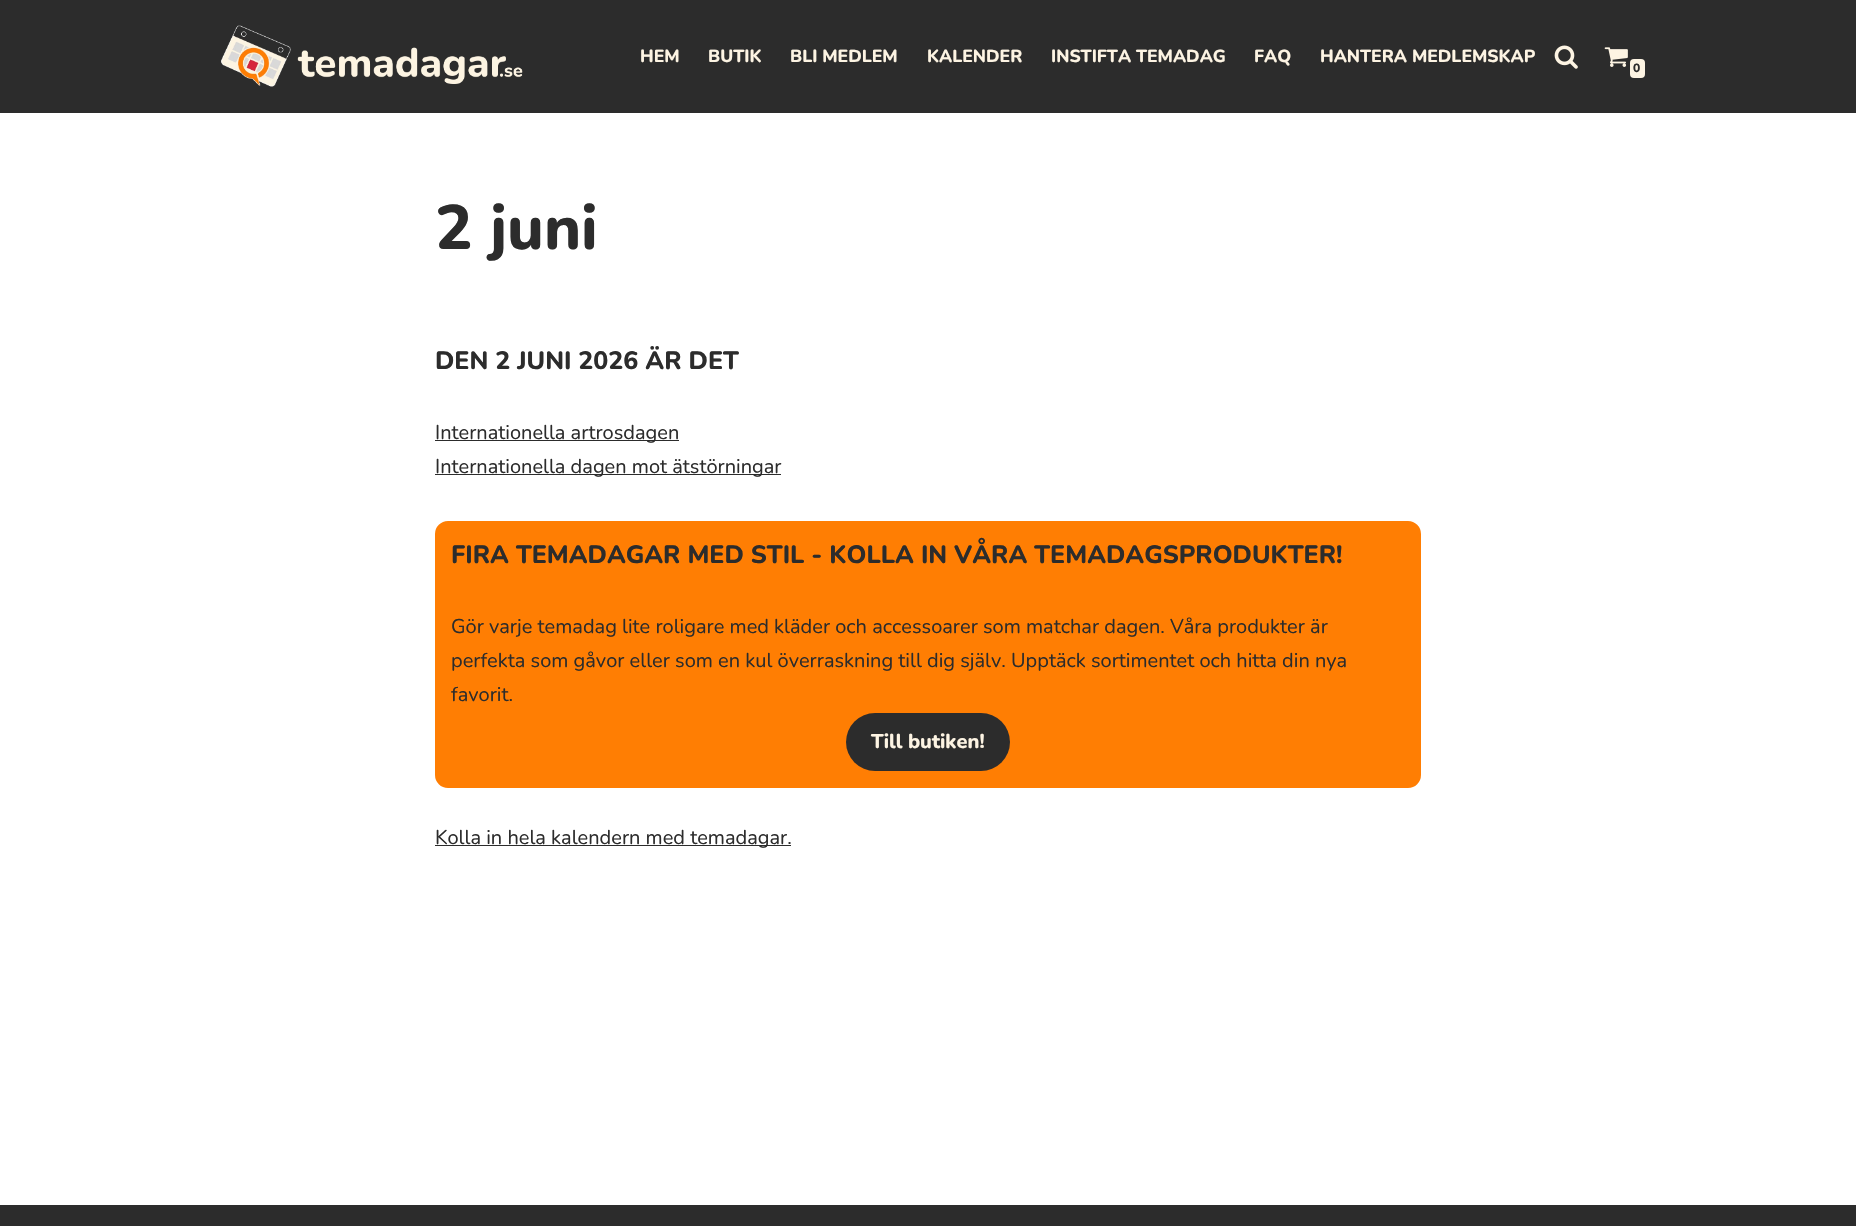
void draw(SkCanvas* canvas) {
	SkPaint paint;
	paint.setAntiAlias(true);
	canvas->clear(0xffffffff);
	paint.setColor(0xff2c2c2c);
	canvas->drawRect(SkRect::MakeXYWH(0, 0, 1856, 113), paint);
	canvas->drawImageRect(SkImages::DeferredFromEncodedData(SkData::MakeFromFileName("img1.png")), SkRect::MakeXYWH(221, 25, 302, 62), SkSamplingOptions());
	SkFont f1(fontMgr->matchFamilyStyle("Nunito", SkFontStyle(800, SkFontStyle::kNormal_Width, SkFontStyle::kUpright_Slant)), 17.5);
	f1.setSubpixel(true);
	paint.setColor(0xfffdf4e3);
	canvas->drawString("HEM", 640, 62, f1, paint);
	canvas->drawString("BUTIK", 708, 62, f1, paint);
	canvas->drawString("BLI MEDLEM", 790, 62, f1, paint);
	canvas->drawString("KALENDER", 927, 62, f1, paint);
	canvas->drawString("INSTIFTA TEMADAG", 1051, 62, f1, paint);
	canvas->drawString("FAQ", 1254, 62, f1, paint);
	canvas->drawString("HANTERA MEDLEMSKAP", 1320, 62, f1, paint);
	canvas->drawImageRect(SkImages::DeferredFromEncodedData(SkData::MakeFromFileName("img2.png")), SkRect::MakeXYWH(1554, 45, 24, 24), SkSamplingOptions());
	canvas->drawImageRect(SkImages::DeferredFromEncodedData(SkData::MakeFromFileName("img3.png")), SkRect::MakeXYWH(1604, 47, 24, 20), SkSamplingOptions());
	canvas->drawRoundRect(SkRect::MakeXYWH(1630, 59, 15, 19), 4, 4, paint);
	SkFont f2(fontMgr->matchFamilyStyle("Nunito", SkFontStyle(800, SkFontStyle::kNormal_Width, SkFontStyle::kUpright_Slant)), 12);
	f2.setSubpixel(true);
	paint.setColor(0xff2c2c2c);
	canvas->drawString("0", 1633, 72, f2, paint);
	SkFont f3(fontMgr->matchFamilyStyle("Nunito", SkFontStyle(800, SkFontStyle::kNormal_Width, SkFontStyle::kUpright_Slant)), 62.5);
	f3.setSubpixel(true);
	canvas->drawString("2 juni", 435, 249, f3, paint);
	SkFont f4(fontMgr->matchFamilyStyle("Nunito", SkFontStyle(800, SkFontStyle::kNormal_Width, SkFontStyle::kUpright_Slant)), 25);
	f4.setSubpixel(true);
	canvas->drawString("DEN 2 JUNI 2026 ÄR DET", 435, 369, f4, paint);
	canvas->drawRect(SkRect::MakeXYWH(435, 440, 244, 1), paint);
	SkFont f5(fontMgr->matchFamilyStyle("Nunito", SkFontStyle::Normal()), 20);
	f5.setSubpixel(true);
	canvas->drawString("Internationella artrosdagen", 435, 439, f5, paint);
	canvas->drawRect(SkRect::MakeXYWH(435, 474, 346, 1), paint);
	canvas->drawString("Internationella dagen mot ätstörningar", 435, 473, f5, paint);
	paint.setColor(0xffff7e03);
	canvas->drawRoundRect(SkRect::MakeXYWH(437, 523, 982, 263), 11, 11, paint);
	paint.setStroke(true);
	paint.setStrokeWidth(4);
	canvas->drawRoundRect(SkRect::MakeXYWH(437, 523, 982, 263), 11, 11, paint);
	paint.setStroke(false);
	paint.setColor(0xff2c2c2c);
	canvas->drawString("FIRA TEMADAGAR MED STIL - KOLLA IN VÅRA TEMADAGSPRODUKTER!", 451, 563, f4, paint);
	canvas->drawString("Gör varje temadag lite roligare med kläder och accessoarer som matchar dagen. Våra produkter är", 451, 633, f5, paint);
	canvas->drawString("perfekta som gåvor eller som en kul överraskning till dig själv. Upptäck sortimentet och hitta din nya", 451, 667, f5, paint);
	canvas->drawString("favorit.", 451, 701, f5, paint);
	canvas->drawRoundRect(SkRect::MakeXYWH(846, 713, 164, 58), 29, 29, paint);
	SkFont f6(fontMgr->matchFamilyStyle("Nunito", SkFontStyle(800, SkFontStyle::kNormal_Width, SkFontStyle::kUpright_Slant)), 20);
	f6.setSubpixel(true);
	paint.setColor(0xfffdf4e3);
	canvas->drawString("Till butiken!", 871, 748, f6, paint);
	paint.setColor(0xff2c2c2c);
	canvas->drawRect(SkRect::MakeXYWH(435, 845, 356, 1), paint);
	canvas->drawString("Kolla in hela kalendern med temadagar.", 435, 844, f5, paint);
	canvas->drawRect(SkRect::MakeXYWH(0, 1205, 1856, 21), paint);
}
